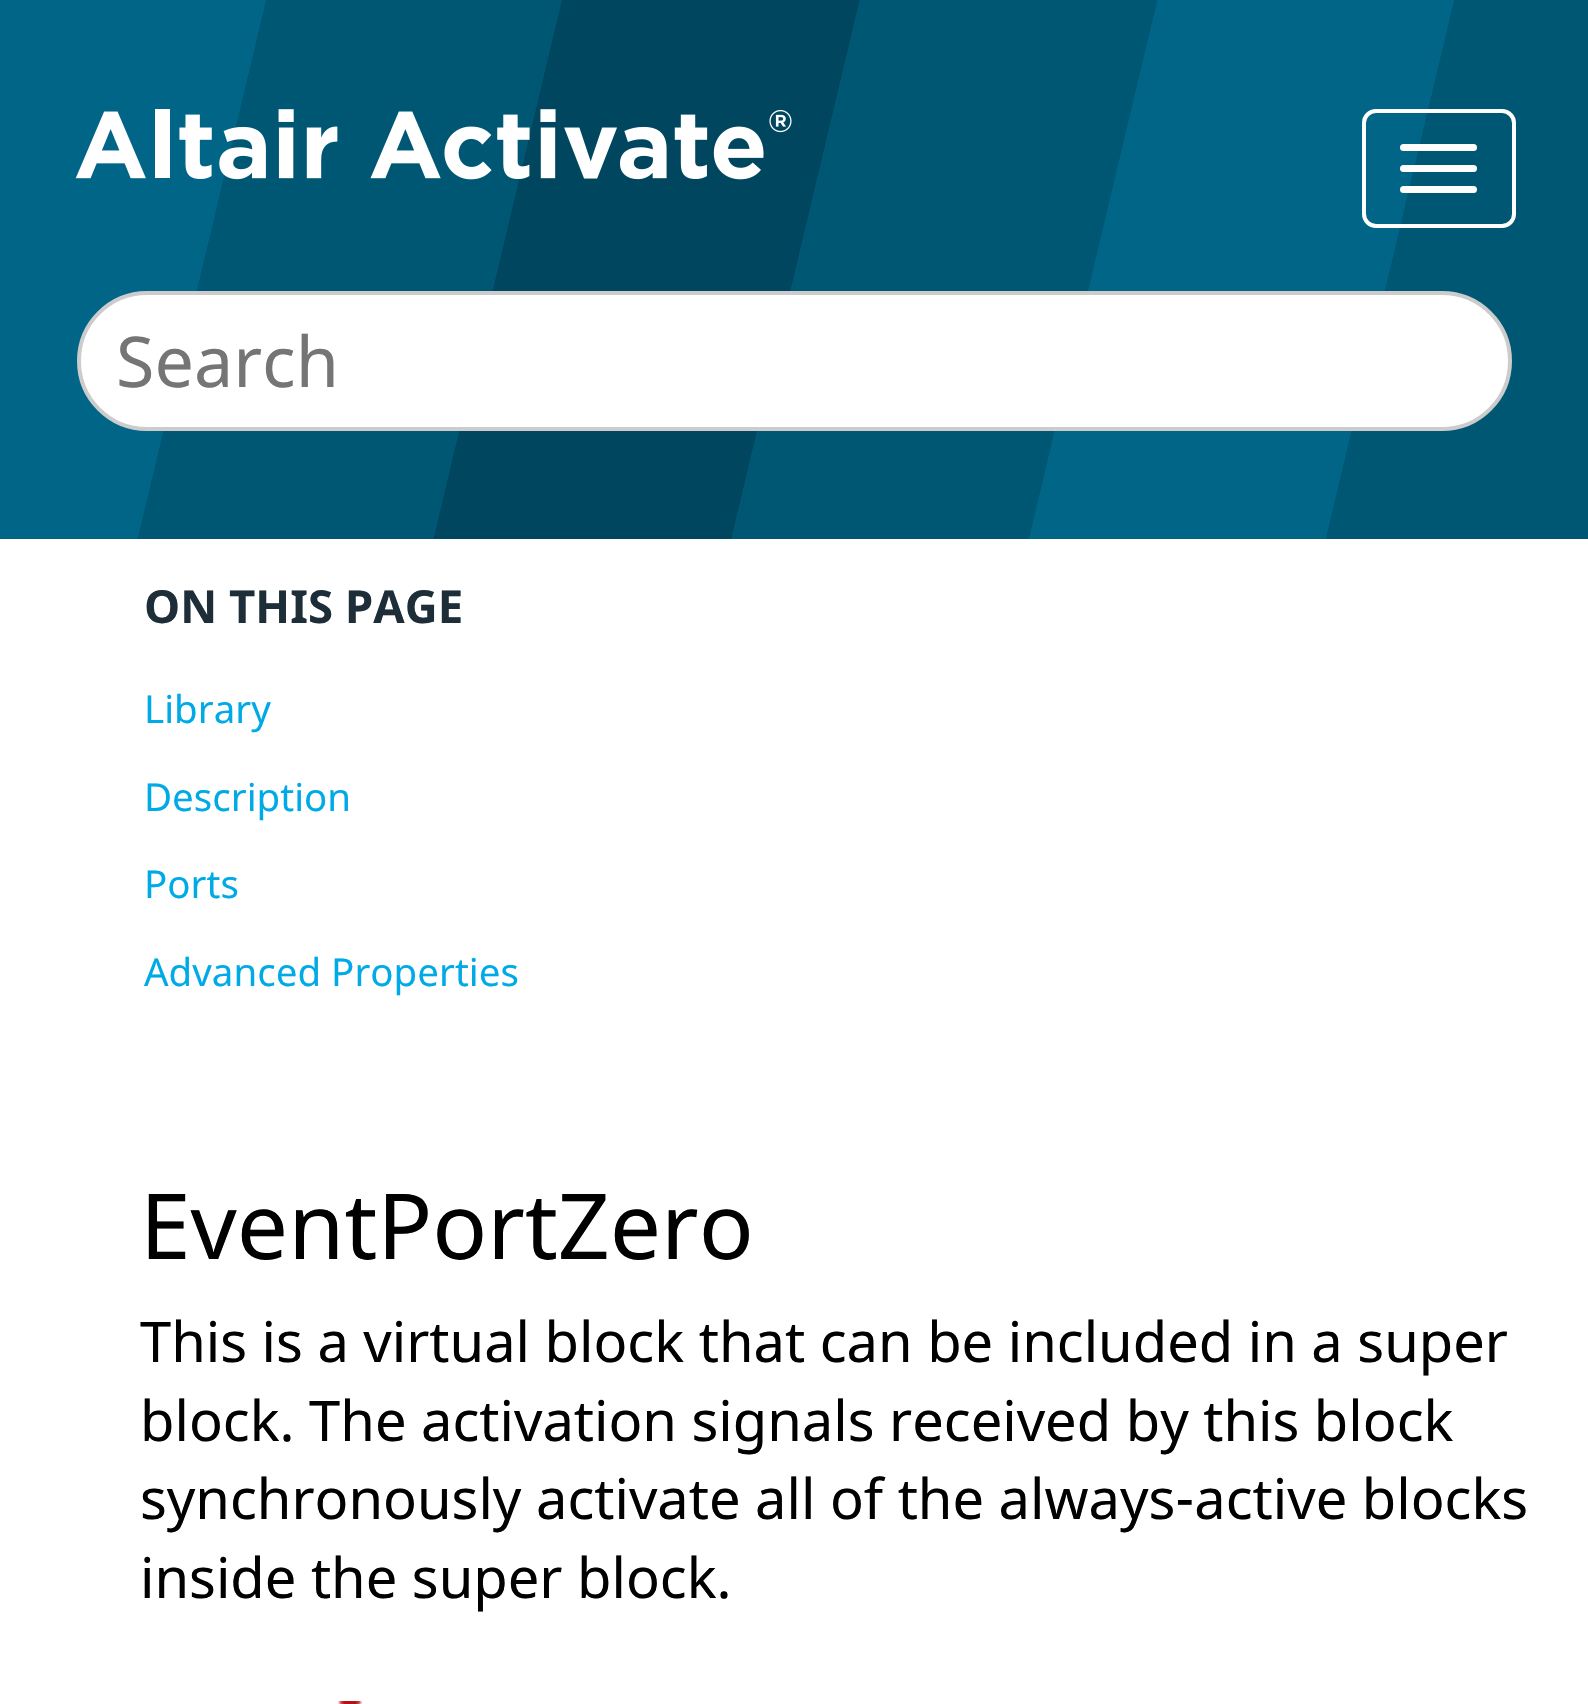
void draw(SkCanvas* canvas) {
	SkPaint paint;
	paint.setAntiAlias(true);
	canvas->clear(0xffffffff);
	canvas->drawImageRect(SkImages::DeferredFromEncodedData(SkData::MakeFromFileName("img1.png")), SkRect::MakeXYWH(0, 0, 1588, 539), SkSamplingOptions());
	canvas->drawImageRect(SkImages::DeferredFromEncodedData(SkData::MakeFromFileName("img2.png")), SkRect::MakeXYWH(75, 109, 717, 71), SkSamplingOptions());
	paint.setStroke(true);
	paint.setStrokeWidth(4);
	paint.setColor(0xffffffff);
	canvas->drawRoundRect(SkRect::MakeXYWH(1364, 111, 150, 115), 12, 12, paint);
	paint.setStroke(false);
	canvas->drawRoundRect(SkRect::MakeXYWH(1400, 144, 77, 7), 3.5, 3.5, paint);
	canvas->drawRoundRect(SkRect::MakeXYWH(1400, 165, 77, 7), 3.5, 3.5, paint);
	canvas->drawRoundRect(SkRect::MakeXYWH(1400, 186, 77, 7), 3.5, 3.5, paint);
	canvas->drawRoundRect(SkRect::MakeXYWH(79, 293, 1431, 136), 68, 68, paint);
	paint.setStroke(true);
	paint.setColor(0xffcccccc);
	canvas->drawRoundRect(SkRect::MakeXYWH(79, 293, 1431, 136), 68, 68, paint);
	SkFont f1(fontMgr->matchFamilyStyle("Noto Sans", SkFontStyle::Normal()), 70);
	f1.setSubpixel(true);
	paint.setStroke(false);
	paint.setColor(0xff757575);
	canvas->drawString("Search", 116, 387, f1, paint);
	SkFont f2(fontMgr->matchFamilyStyle("Noto Sans", SkFontStyle::Bold()), 45.5);
	f2.setSubpixel(true);
	paint.setColor(0xff1d2e38);
	canvas->drawString("ON THIS PAGE", 144, 623, f2, paint);
	SkFont f3(fontMgr->matchFamilyStyle("Noto Sans", SkFontStyle::Normal()), 38.5);
	f3.setSubpixel(true);
	paint.setColor(0xff00aae6);
	canvas->drawString("Library", 144, 723, f3, paint);
	canvas->drawString("Description", 144, 811, f3, paint);
	canvas->drawString("Ports", 144, 898, f3, paint);
	canvas->drawString("Advanced Properties", 144, 986, f3, paint);
	SkFont f4(fontMgr->matchFamilyStyle("Noto Sans", SkFontStyle::Normal()), 91);
	f4.setSubpixel(true);
	paint.setColor(0xff000000);
	canvas->drawString("EventPortZero", 140, 1259, f4, paint);
	SkFont f5(fontMgr->matchFamilyStyle("Noto Sans", SkFontStyle::Normal()), 56);
	f5.setSubpixel(true);
	canvas->drawString("This is a virtual block that can be included in a super", 140, 1362, f5, paint);
	canvas->drawString("block. The activation signals received by this block", 140, 1441, f5, paint);
	canvas->drawString("synchronously activate all of the always-active blocks", 140, 1519, f5, paint);
	canvas->drawString("inside the super block.", 140, 1598, f5, paint);
	canvas->drawImageRect(SkImages::DeferredFromEncodedData(SkData::MakeFromFileName("img3.png")), SkRect::MakeXYWH(338, 1701, 24, 3), SkSamplingOptions());
}
